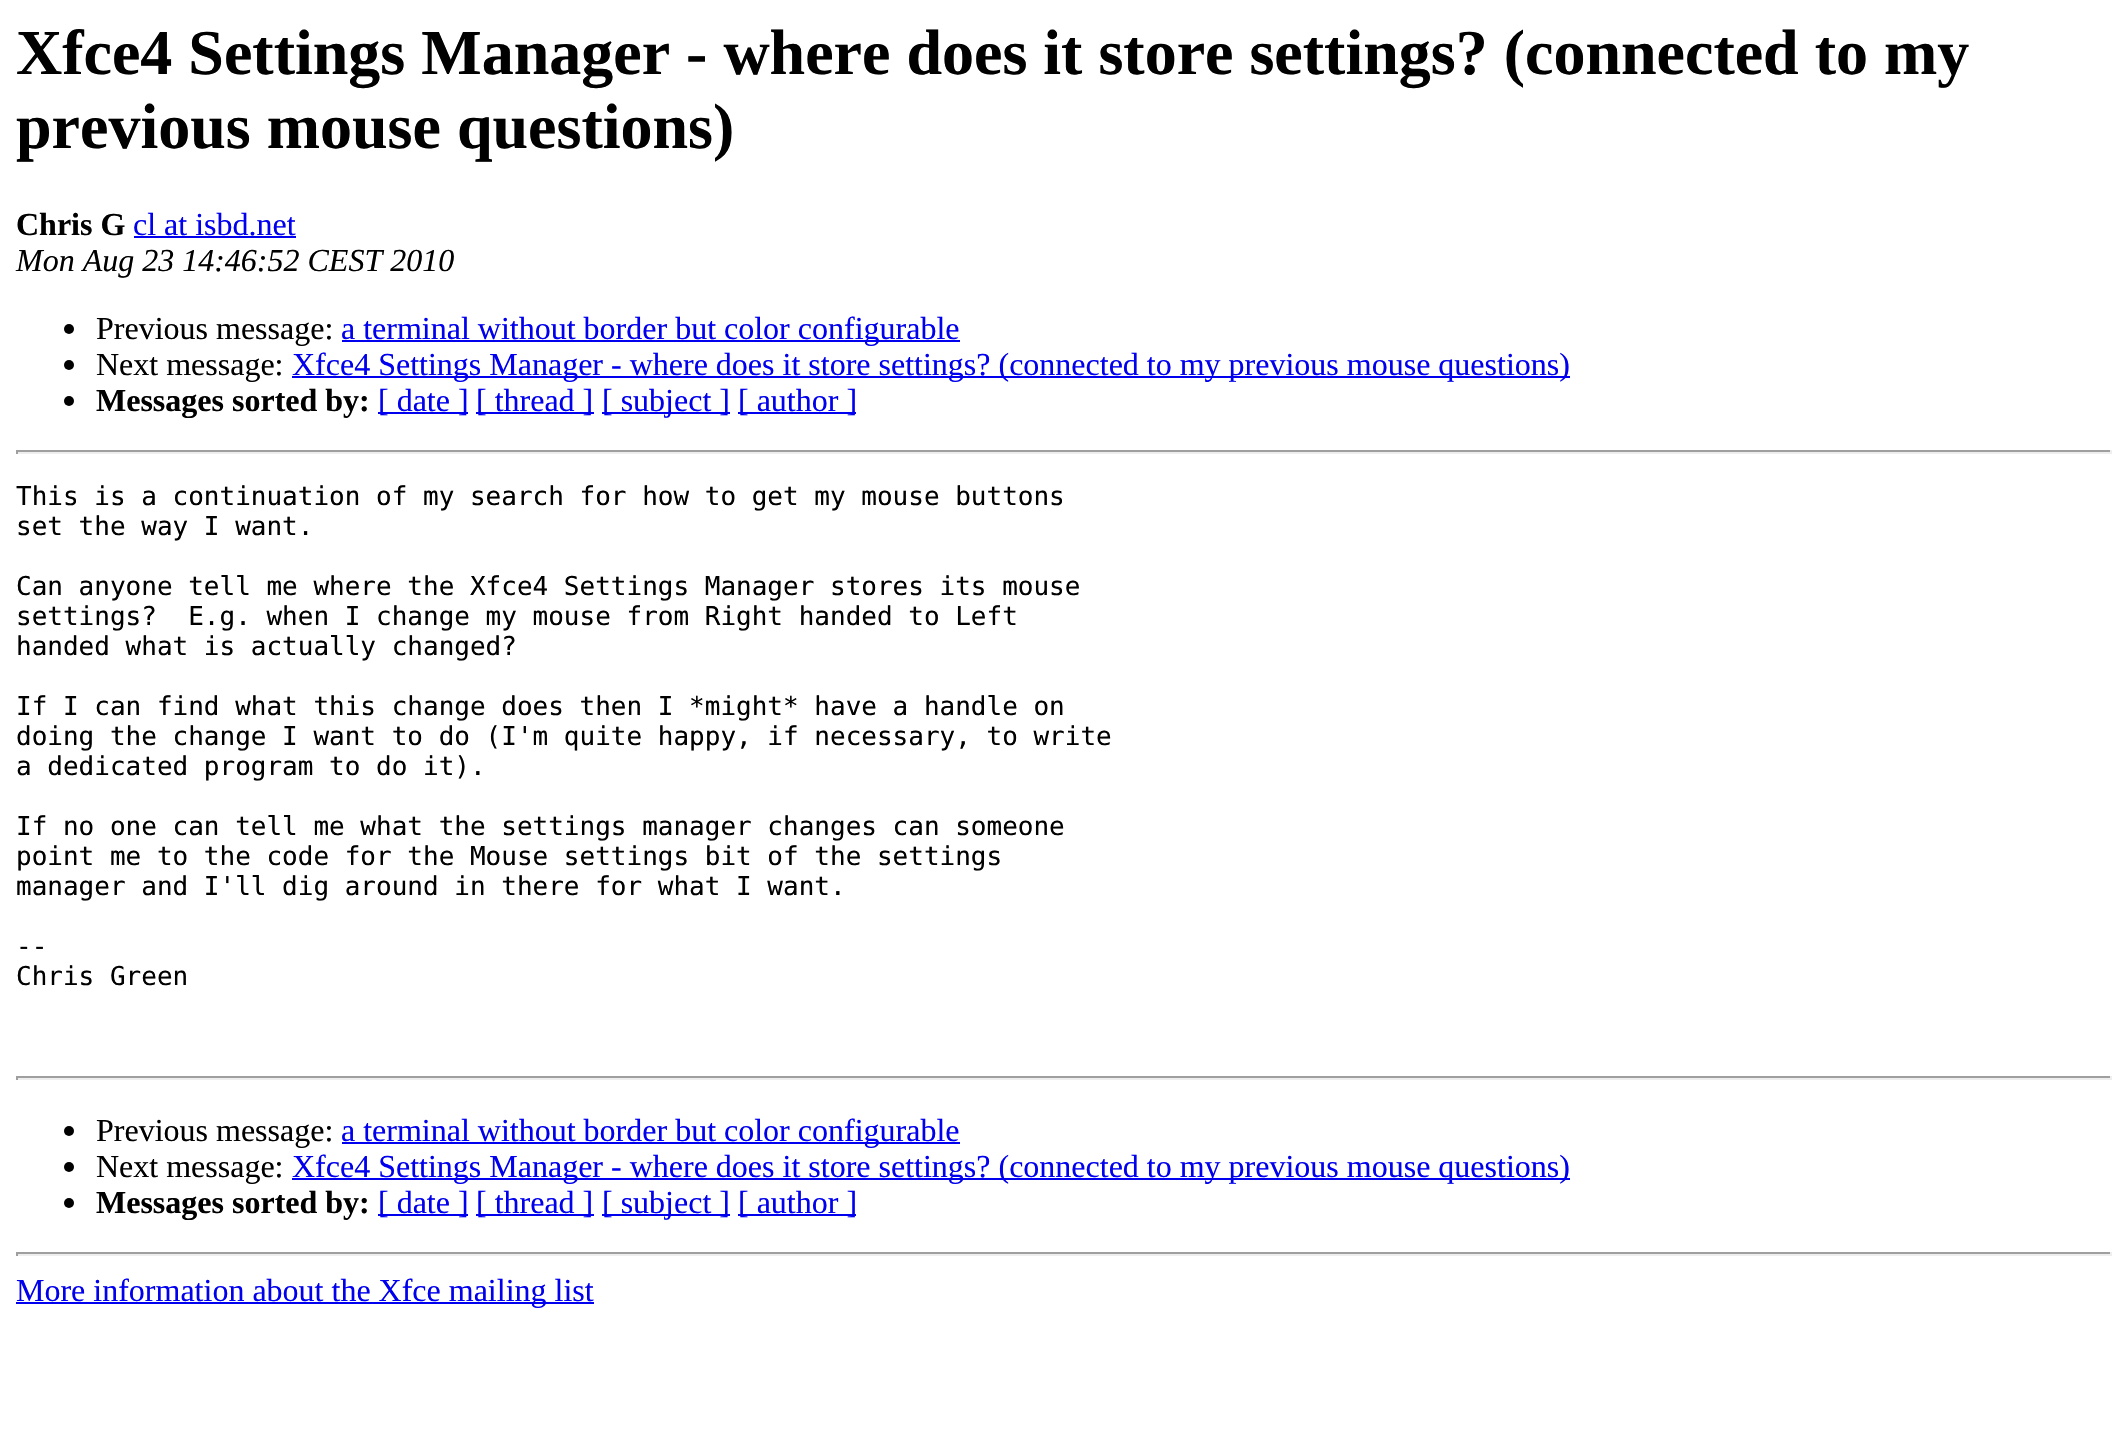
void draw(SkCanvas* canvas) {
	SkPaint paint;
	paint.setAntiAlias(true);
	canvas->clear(0xffffffff);
	SkFont f1(fontMgr->matchFamilyStyle("Liberation Serif", SkFontStyle::Bold()), 64);
	f1.setSubpixel(true);
	paint.setColor(0xff000000);
	canvas->drawString("Xfce4 Settings Manager - where does it store settings? (connected to my", 16, 74, f1, paint);
	canvas->drawString("previous mouse questions)", 16, 148, f1, paint);
	SkFont f2(fontMgr->matchFamilyStyle("Liberation Serif", SkFontStyle::Bold()), 32);
	f2.setSubpixel(true);
	canvas->drawString("Chris G", 16, 235, f2, paint);
	SkFont f3(fontMgr->matchFamilyStyle("Liberation Serif", SkFontStyle::Normal()), 32);
	f3.setSubpixel(true);
	paint.setColor(0xff0000ee);
	canvas->drawString("cl at isbd.net", 133, 235, f3, paint);
	canvas->drawRect(SkRect::MakeXYWH(134, 236, 162, 2), paint);
	SkFont f4(fontMgr->matchFamilyStyle("Liberation Serif", SkFontStyle::Italic()), 32);
	f4.setSubpixel(true);
	paint.setColor(0xff000000);
	canvas->drawString("Mon Aug 23 14:46:52 CEST 2010", 16, 271, f4, paint);
	canvas->drawCircle(69, 329, 5, paint);
	canvas->drawString("Previous message:", 96, 339, f3, paint);
	paint.setColor(0xff0000ee);
	canvas->drawRect(SkRect::MakeXYWH(342, 340, 618, 2), paint);
	canvas->drawString("a terminal without border but color configurable", 341, 339, f3, paint);
	paint.setColor(0xff000000);
	canvas->drawCircle(69, 365, 5, paint);
	canvas->drawString("Next message:", 96, 375, f3, paint);
	paint.setColor(0xff0000ee);
	canvas->drawRect(SkRect::MakeXYWH(292, 376, 1278, 2), paint);
	canvas->drawString("Xfce4 Settings Manager - where does it store settings? (connected to my previous mouse questions)", 292, 375, f3, paint);
	paint.setColor(0xff000000);
	canvas->drawCircle(69, 401, 5, paint);
	canvas->drawString("Messages sorted by:", 96, 411, f2, paint);
	paint.setColor(0xff0000ee);
	canvas->drawRect(SkRect::MakeXYWH(378, 412, 90, 2), paint);
	canvas->drawString("[ date ]", 378, 411, f3, paint);
	canvas->drawRect(SkRect::MakeXYWH(476, 412, 118, 2), paint);
	canvas->drawString("[ thread ]", 476, 411, f3, paint);
	canvas->drawRect(SkRect::MakeXYWH(602, 412, 128, 2), paint);
	canvas->drawString("[ subject ]", 602, 411, f3, paint);
	canvas->drawRect(SkRect::MakeXYWH(738, 412, 118, 2), paint);
	canvas->drawString("[ author ]", 738, 411, f3, paint);
	paint.setColor(0xff9f9f9f);
	canvas->drawRect(SkRect::MakeXYWH(16, 450, 2096, 2), paint);
	paint.setColor(0xffeeeeee);
	canvas->drawRect(SkRect::MakeXYWH(2110, 450, 2, 4), paint);
	canvas->drawRect(SkRect::MakeXYWH(16, 452, 2096, 2), paint);
	paint.setColor(0xff9f9f9f);
	canvas->drawRect(SkRect::MakeXYWH(16, 450, 2, 4), paint);
	SkFont f5(fontMgr->matchFamilyStyle("DejaVu Sans Mono", SkFontStyle::Normal()), 26);
	f5.setSubpixel(true);
	paint.setColor(0xff000000);
	canvas->drawString("This is a continuation of my search for how to get my mouse buttons", 16, 505, f5, paint);
	canvas->drawString("set the way I want.", 16, 535, f5, paint);
	canvas->drawString("Can anyone tell me where the Xfce4 Settings Manager stores its mouse", 16, 595, f5, paint);
	canvas->drawString("settings?  E.g. when I change my mouse from Right handed to Left", 16, 625, f5, paint);
	canvas->drawString("handed what is actually changed?", 16, 655, f5, paint);
	canvas->drawString("If I can find what this change does then I *might* have a handle on", 16, 715, f5, paint);
	canvas->drawString("doing the change I want to do (I'm quite happy, if necessary, to write", 16, 745, f5, paint);
	canvas->drawString("a dedicated program to do it).", 16, 775, f5, paint);
	canvas->drawString("If no one can tell me what the settings manager changes can someone", 16, 835, f5, paint);
	canvas->drawString("point me to the code for the Mouse settings bit of the settings", 16, 865, f5, paint);
	canvas->drawString("manager and I'll dig around in there for what I want.", 16, 895, f5, paint);
	canvas->drawString("--", 16, 955, f5, paint);
	canvas->drawString("Chris Green", 16, 985, f5, paint);
	paint.setColor(0xff9f9f9f);
	canvas->drawRect(SkRect::MakeXYWH(16, 1076, 2096, 2), paint);
	paint.setColor(0xffeeeeee);
	canvas->drawRect(SkRect::MakeXYWH(2110, 1076, 2, 4), paint);
	canvas->drawRect(SkRect::MakeXYWH(16, 1078, 2096, 2), paint);
	paint.setColor(0xff9f9f9f);
	canvas->drawRect(SkRect::MakeXYWH(16, 1076, 2, 4), paint);
	paint.setColor(0xff000000);
	canvas->drawCircle(69, 1131, 5, paint);
	canvas->drawString("Previous message:", 96, 1141, f3, paint);
	paint.setColor(0xff0000ee);
	canvas->drawRect(SkRect::MakeXYWH(342, 1142, 618, 2), paint);
	canvas->drawString("a terminal without border but color configurable", 341, 1141, f3, paint);
	paint.setColor(0xff000000);
	canvas->drawCircle(69, 1167, 5, paint);
	canvas->drawString("Next message:", 96, 1177, f3, paint);
	paint.setColor(0xff0000ee);
	canvas->drawRect(SkRect::MakeXYWH(292, 1178, 1278, 2), paint);
	canvas->drawString("Xfce4 Settings Manager - where does it store settings? (connected to my previous mouse questions)", 292, 1177, f3, paint);
	paint.setColor(0xff000000);
	canvas->drawCircle(69, 1203, 5, paint);
	canvas->drawString("Messages sorted by:", 96, 1213, f2, paint);
	paint.setColor(0xff0000ee);
	canvas->drawRect(SkRect::MakeXYWH(378, 1214, 90, 2), paint);
	canvas->drawString("[ date ]", 378, 1213, f3, paint);
	canvas->drawRect(SkRect::MakeXYWH(476, 1214, 118, 2), paint);
	canvas->drawString("[ thread ]", 476, 1213, f3, paint);
	canvas->drawRect(SkRect::MakeXYWH(602, 1214, 128, 2), paint);
	canvas->drawString("[ subject ]", 602, 1213, f3, paint);
	canvas->drawRect(SkRect::MakeXYWH(738, 1214, 118, 2), paint);
	canvas->drawString("[ author ]", 738, 1213, f3, paint);
	paint.setColor(0xff9f9f9f);
	canvas->drawRect(SkRect::MakeXYWH(16, 1252, 2096, 2), paint);
	paint.setColor(0xffeeeeee);
	canvas->drawRect(SkRect::MakeXYWH(2110, 1252, 2, 4), paint);
	canvas->drawRect(SkRect::MakeXYWH(16, 1254, 2096, 2), paint);
	paint.setColor(0xff9f9f9f);
	canvas->drawRect(SkRect::MakeXYWH(16, 1252, 2, 4), paint);
	paint.setColor(0xff0000ee);
	canvas->drawRect(SkRect::MakeXYWH(16, 1302, 578, 2), paint);
	canvas->drawString("More information about the Xfce mailing list", 16, 1301, f3, paint);
}
